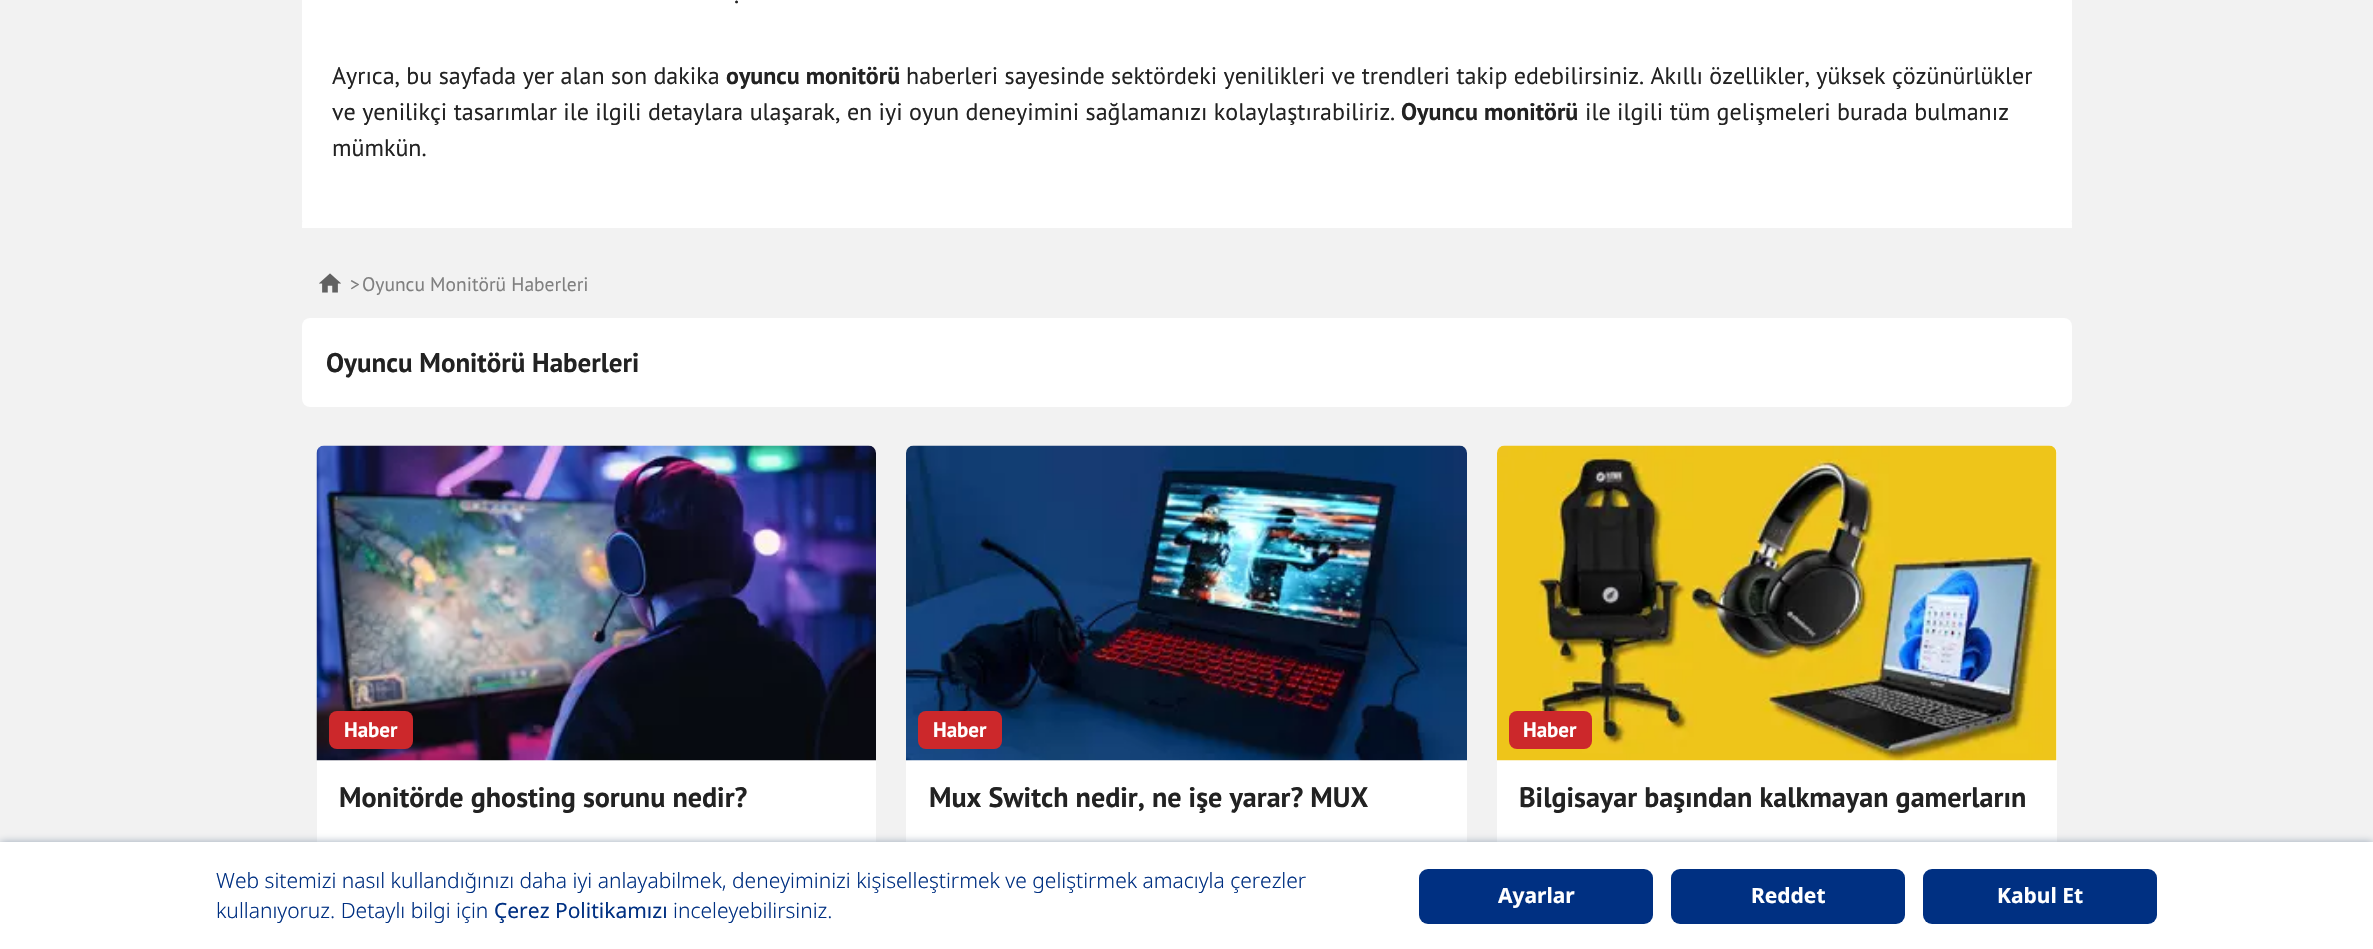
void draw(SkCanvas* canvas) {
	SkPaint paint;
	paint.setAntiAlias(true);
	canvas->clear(0xfff2f2f2);
	paint.setColor(0xffffffff);
	canvas->drawRoundRect(SkRect::MakeXYWH(302, -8, 1770, 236), 8, 8, paint);
	SkFont f1(fontMgr->matchFamilyStyle("PT Sans", SkFontStyle::Normal()), 24);
	f1.setSubpixel(true);
	paint.setColor(0xff222222);
	canvas->drawString(".", 734, 3, f1, paint);
	canvas->drawString("Ayrıca, bu sayfada yer alan son dakika", 332, 84, f1, paint);
	SkFont f2(fontMgr->matchFamilyStyle("PT Sans", SkFontStyle::Bold()), 24);
	f2.setSubpixel(true);
	canvas->drawString("oyuncu monitörü", 726, 84, f2, paint);
	canvas->drawString("haberleri sayesinde sektördeki yenilikleri ve trendleri takip edebilirsiniz. Akıllı özellikler, yüksek çözünürlükler", 906, 84, f1, paint);
	canvas->drawString("ve yenilikçi tasarımlar ile ilgili detaylara ulaşarak, en iyi oyun deneyimini sağlamanızı kolaylaştırabiliriz.", 332, 120, f1, paint);
	canvas->drawString("Oyuncu monitörü", 1401, 120, f2, paint);
	canvas->drawString("ile ilgili tüm gelişmeleri burada bulmanız", 1585, 120, f1, paint);
	canvas->drawString("mümkün.", 332, 156, f1, paint);
	{
		const SkColor colors[] = {0x00ffffff, 0xffffffff};
		const float stops[] = {0, 1};
		const SkPoint ends[] = {{1187, 192}, {1187, 228}};
		paint.setShader(SkGradientShader::MakeLinear(ends, colors, stops, 2, SkTileMode::kClamp));
		paint.setAlpha(255);
	}
	canvas->drawRect(SkRect::MakeXYWH(302, 222, 1770, 6), paint);
	canvas->drawImageRect(SkImages::DeferredFromEncodedData(SkData::MakeFromFileName("img1.png")), SkRect::MakeXYWH(319, 273, 22, 20), SkSamplingOptions());
	SkFont f3(fontMgr->matchFamilyStyle("PT Sans", SkFontStyle::Normal()), 19.5);
	f3.setSubpixel(true);
	paint.setShader(nullptr);
	paint.setColor(0xff808080);
	canvas->drawString(">", 350, 291, f3, paint);
	canvas->drawString("Oyuncu Monitörü Haberleri", 362, 291, f3, paint);
	paint.setColor(0xffffffff);
	canvas->drawRoundRect(SkRect::MakeXYWH(302, 318, 1770, 89), 8, 8, paint);
	SkFont f4(fontMgr->matchFamilyStyle("PT Sans", SkFontStyle::Bold()), 27);
	f4.setSubpixel(true);
	paint.setColor(0xff222222);
	canvas->drawString("Oyuncu Monitörü Haberleri", 326, 372, f4, paint);
	paint.setColor(0xffffffff);
	canvas->drawRoundRect(SkRect::MakeXYWH(317, 446, 559, 442), 8, 8, paint);
	canvas->drawImageRect(SkImages::DeferredFromEncodedData(SkData::MakeFromFileName("img2.png")), SkRect::MakeXYWH(316, 445, 560, 316), SkSamplingOptions());
	paint.setColor(0xffcc282b);
	canvas->drawRoundRect(SkRect::MakeXYWH(329, 711, 84, 38), 8, 8, paint);
	SkFont f5(fontMgr->matchFamilyStyle("PT Sans", SkFontStyle::Bold()), 21);
	f5.setSubpixel(true);
	paint.setColor(0xffffffff);
	canvas->drawString("Haber", 344, 737, f5, paint);
	SkFont f6(fontMgr->matchFamilyStyle("PT Sans", SkFontStyle::Bold()), 28.1);
	f6.setSubpixel(true);
	paint.setColor(0xff222222);
	canvas->drawString("Monitörde ghosting sorunu nedir?", 339, 807, f6, paint);
	paint.setColor(0xffffffff);
	canvas->drawRoundRect(SkRect::MakeXYWH(906, 446, 561, 442), 8, 8, paint);
	canvas->drawImageRect(SkImages::DeferredFromEncodedData(SkData::MakeFromFileName("img3.png")), SkRect::MakeXYWH(906, 445, 561, 316), SkSamplingOptions());
	paint.setColor(0xffcc282b);
	canvas->drawRoundRect(SkRect::MakeXYWH(918, 711, 84, 38), 8, 8, paint);
	paint.setColor(0xffffffff);
	canvas->drawString("Haber", 933, 737, f5, paint);
	paint.setColor(0xff222222);
	canvas->drawString("Mux Switch nedir, ne işe yarar? MUX", 929, 807, f6, paint);
	paint.setColor(0xffffffff);
	canvas->drawRoundRect(SkRect::MakeXYWH(1497, 446, 560, 442), 8, 8, paint);
	canvas->drawImageRect(SkImages::DeferredFromEncodedData(SkData::MakeFromFileName("img4.png")), SkRect::MakeXYWH(1497, 445, 560, 316), SkSamplingOptions());
	paint.setColor(0xffcc282b);
	canvas->drawRoundRect(SkRect::MakeXYWH(1509, 711, 83, 38), 8, 8, paint);
	paint.setColor(0xffffffff);
	canvas->drawString("Haber", 1523, 737, f5, paint);
	paint.setColor(0xff222222);
	canvas->drawString("Bilgisayar başından kalkmayan gamerların", 1519, 807, f6, paint);
	paint.setColor(0xff9ba7b7);
	paint.setMaskFilter(SkMaskFilter::MakeBlur(kNormal_SkBlurStyle, 4));
	canvas->drawRect(SkRect::MakeXYWH(0, 842, 2373, 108), paint);
	paint.setMaskFilter(nullptr);
	paint.setColor(0xffffffff);
	canvas->drawRect(SkRect::MakeXYWH(0, 842, 2373, 107), paint);
	SkFont f7(fontMgr->matchFamilyStyle("Noto Sans", SkFontStyle(300, SkFontStyle::kNormal_Width, SkFontStyle::kUpright_Slant)), 21);
	f7.setSubpixel(true);
	paint.setColor(0xff003082);
	canvas->drawString("Web sitemizi nasıl kullandığınızı daha iyi anlayabilmek, deneyiminizi kişiselleştirmek ve geliştirmek amacıyla çerezler", 216, 888, f7, paint);
	canvas->drawString("kullanıyoruz. Detaylı bilgi için", 216, 918, f7, paint);
	SkFont f8(fontMgr->matchFamilyStyle("Noto Sans", SkFontStyle::Normal()), 21);
	f8.setSubpixel(true);
	canvas->drawString("Çerez Politikamızı", 494, 918, f8, paint);
	canvas->drawString("inceleyebilirsiniz.", 673, 918, f7, paint);
	canvas->drawRoundRect(SkRect::MakeXYWH(1419, 869, 234, 55), 9, 9, paint);
	SkFont f9(fontMgr->matchFamilyStyle("Noto Sans", SkFontStyle::Bold()), 21);
	f9.setSubpixel(true);
	paint.setColor(0xffffffff);
	canvas->drawString("Ayarlar", 1498, 903, f9, paint);
	paint.setColor(0xff003082);
	canvas->drawRoundRect(SkRect::MakeXYWH(1671, 869, 234, 55), 9, 9, paint);
	paint.setColor(0xffffffff);
	canvas->drawString("Reddet", 1751, 903, f9, paint);
	paint.setColor(0xff003082);
	canvas->drawRoundRect(SkRect::MakeXYWH(1923, 869, 234, 55), 9, 9, paint);
	paint.setColor(0xffffffff);
	canvas->drawString("Kabul Et", 1997, 903, f9, paint);
}
